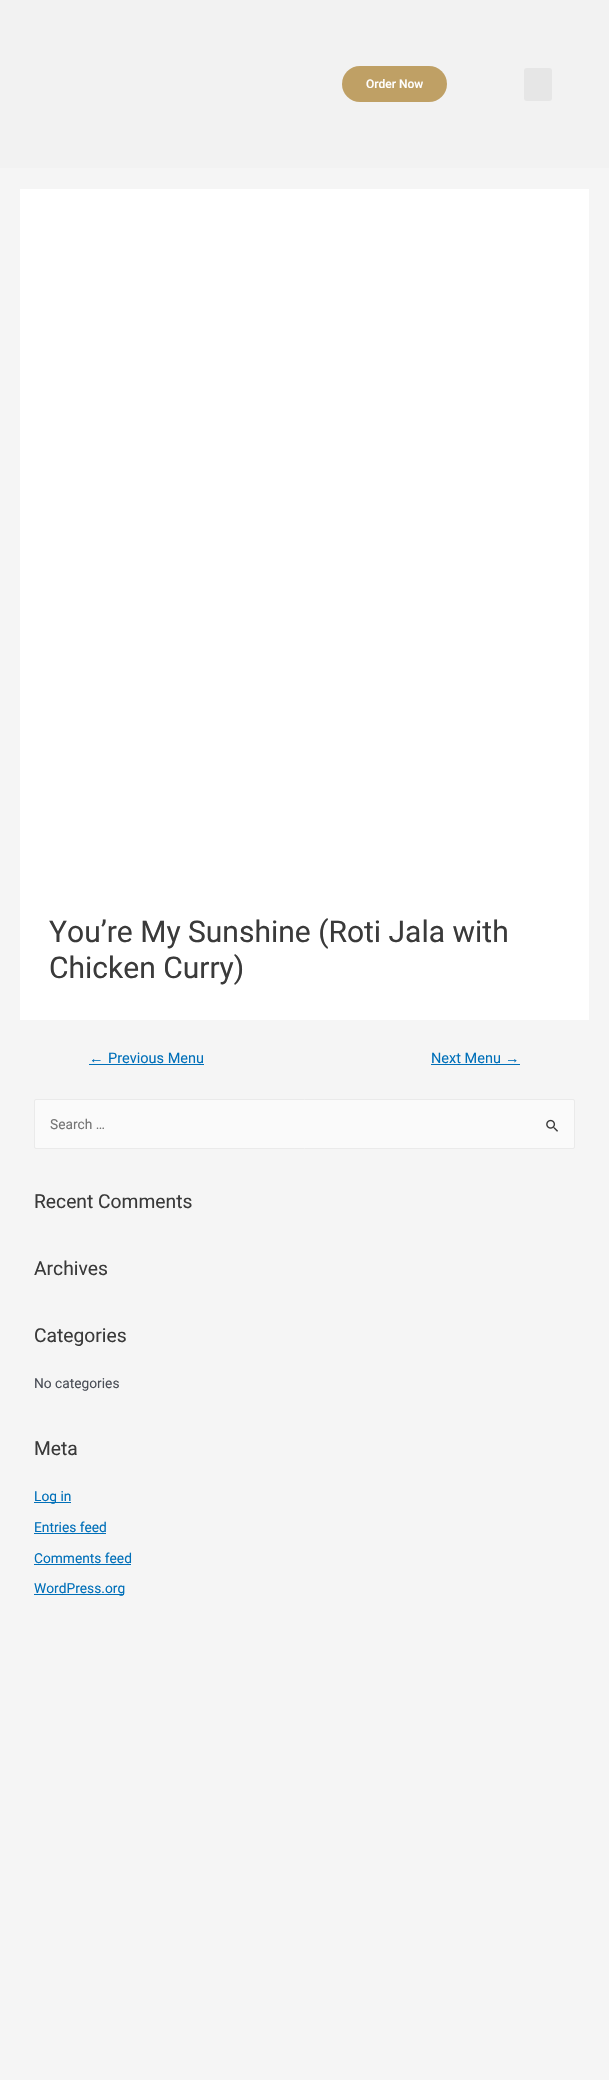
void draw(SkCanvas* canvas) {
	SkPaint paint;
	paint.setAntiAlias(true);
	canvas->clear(0xfff5f5f5);
	paint.setColor(0xfff2f2f2);
	canvas->drawRect(SkRect::MakeXYWH(0, 0, 609, 168), paint);
	paint.setColor(0xffbfa065);
	canvas->drawRoundRect(SkRect::MakeXYWH(342, 66, 105, 36), 18, 18, paint);
	SkFont f1(fontMgr->matchFamilyStyle("Roboto", SkFontStyle(500, SkFontStyle::kNormal_Width, SkFontStyle::kUpright_Slant)), 12);
	f1.setSubpixel(true);
	paint.setColor(0xffffffff);
	canvas->drawString("Order Now", 366, 88, f1, paint);
	paint.setColor(0xffe6e6e6);
	canvas->drawRoundRect(SkRect::MakeXYWH(524, 68, 28, 33), 3, 3, paint);
	paint.setColor(0xffffffff);
	canvas->drawRect(SkRect::MakeXYWH(20, 189, 569, 831), paint);
	SkFont f2(fontMgr->matchFamilyStyle("Roboto", SkFontStyle::Normal()), 30);
	f2.setSubpixel(true);
	paint.setColor(0xff3a3a3a);
	canvas->drawString("You’re My Sunshine (Roti Jala with", 49, 942, f2, paint);
	canvas->drawString("Chicken Curry)", 49, 978, f2, paint);
	SkFont f3(fontMgr->matchFamilyStyle("Liberation Sans", SkFontStyle::Normal()), 14.5);
	f3.setSubpixel(true);
	paint.setColor(0xff0170b9);
	canvas->drawString("←", 89, 1063, f3, paint);
	canvas->drawRect(SkRect::MakeXYWH(89, 1064, 115, 1), paint);
	SkFont f4(fontMgr->matchFamilyStyle("Roboto", SkFontStyle::Normal()), 14.5);
	f4.setSubpixel(true);
	canvas->drawString("Previous Menu", 108, 1063, f4, paint);
	canvas->drawString("Next Menu", 431, 1063, f4, paint);
	canvas->drawRect(SkRect::MakeXYWH(431, 1064, 89, 1), paint);
	canvas->drawString("→", 505, 1063, f3, paint);
	paint.setColor(0xfffafafa);
	canvas->drawRoundRect(SkRect::MakeXYWH(34.5, 1099.5, 540, 49), 1.5, 1.5, paint);
	paint.setStroke(true);
	paint.setStrokeWidth(1);
	paint.setColor(0xffeaeaea);
	canvas->drawRoundRect(SkRect::MakeXYWH(34.5, 1099.5, 540, 49), 1.5, 1.5, paint);
	SkFont f5(fontMgr->matchFamilyStyle("Roboto", SkFontStyle::Normal()), 13.75);
	f5.setSubpixel(true);
	paint.setStroke(false);
	paint.setColor(0xff757575);
	canvas->drawString("Search …", 50, 1129, f5, paint);
	canvas->drawImageRect(SkImages::DeferredFromEncodedData(SkData::MakeFromFileName("img1.png")), SkRect::MakeXYWH(546, 1119, 12, 13), SkSamplingOptions());
	SkFont f6(fontMgr->matchFamilyStyle("Roboto", SkFontStyle::Normal()), 19.25);
	f6.setSubpixel(true);
	paint.setColor(0xff3a3a3a);
	canvas->drawString("Recent Comments", 34, 1208, f6, paint);
	canvas->drawString("Archives", 34, 1275, f6, paint);
	canvas->drawString("Categories", 34, 1342, f6, paint);
	paint.setColor(0xff4b4f58);
	canvas->drawString("No categories", 34, 1388, f5, paint);
	paint.setColor(0xff3a3a3a);
	canvas->drawString("Meta", 34, 1455, f6, paint);
	paint.setColor(0xff0170b9);
	canvas->drawRect(SkRect::MakeXYWH(34, 1502, 37, 1), paint);
	canvas->drawString("Log in", 34, 1501, f5, paint);
	canvas->drawString("Entries feed", 34, 1532, f5, paint);
	canvas->drawRect(SkRect::MakeXYWH(34, 1533, 72, 1), paint);
	canvas->drawString("Comments feed", 34, 1563, f5, paint);
	canvas->drawRect(SkRect::MakeXYWH(34, 1564, 97, 1), paint);
	canvas->drawRect(SkRect::MakeXYWH(34, 1594, 90, 1), paint);
	canvas->drawString("WordPress.org", 34, 1593, f5, paint);
}
